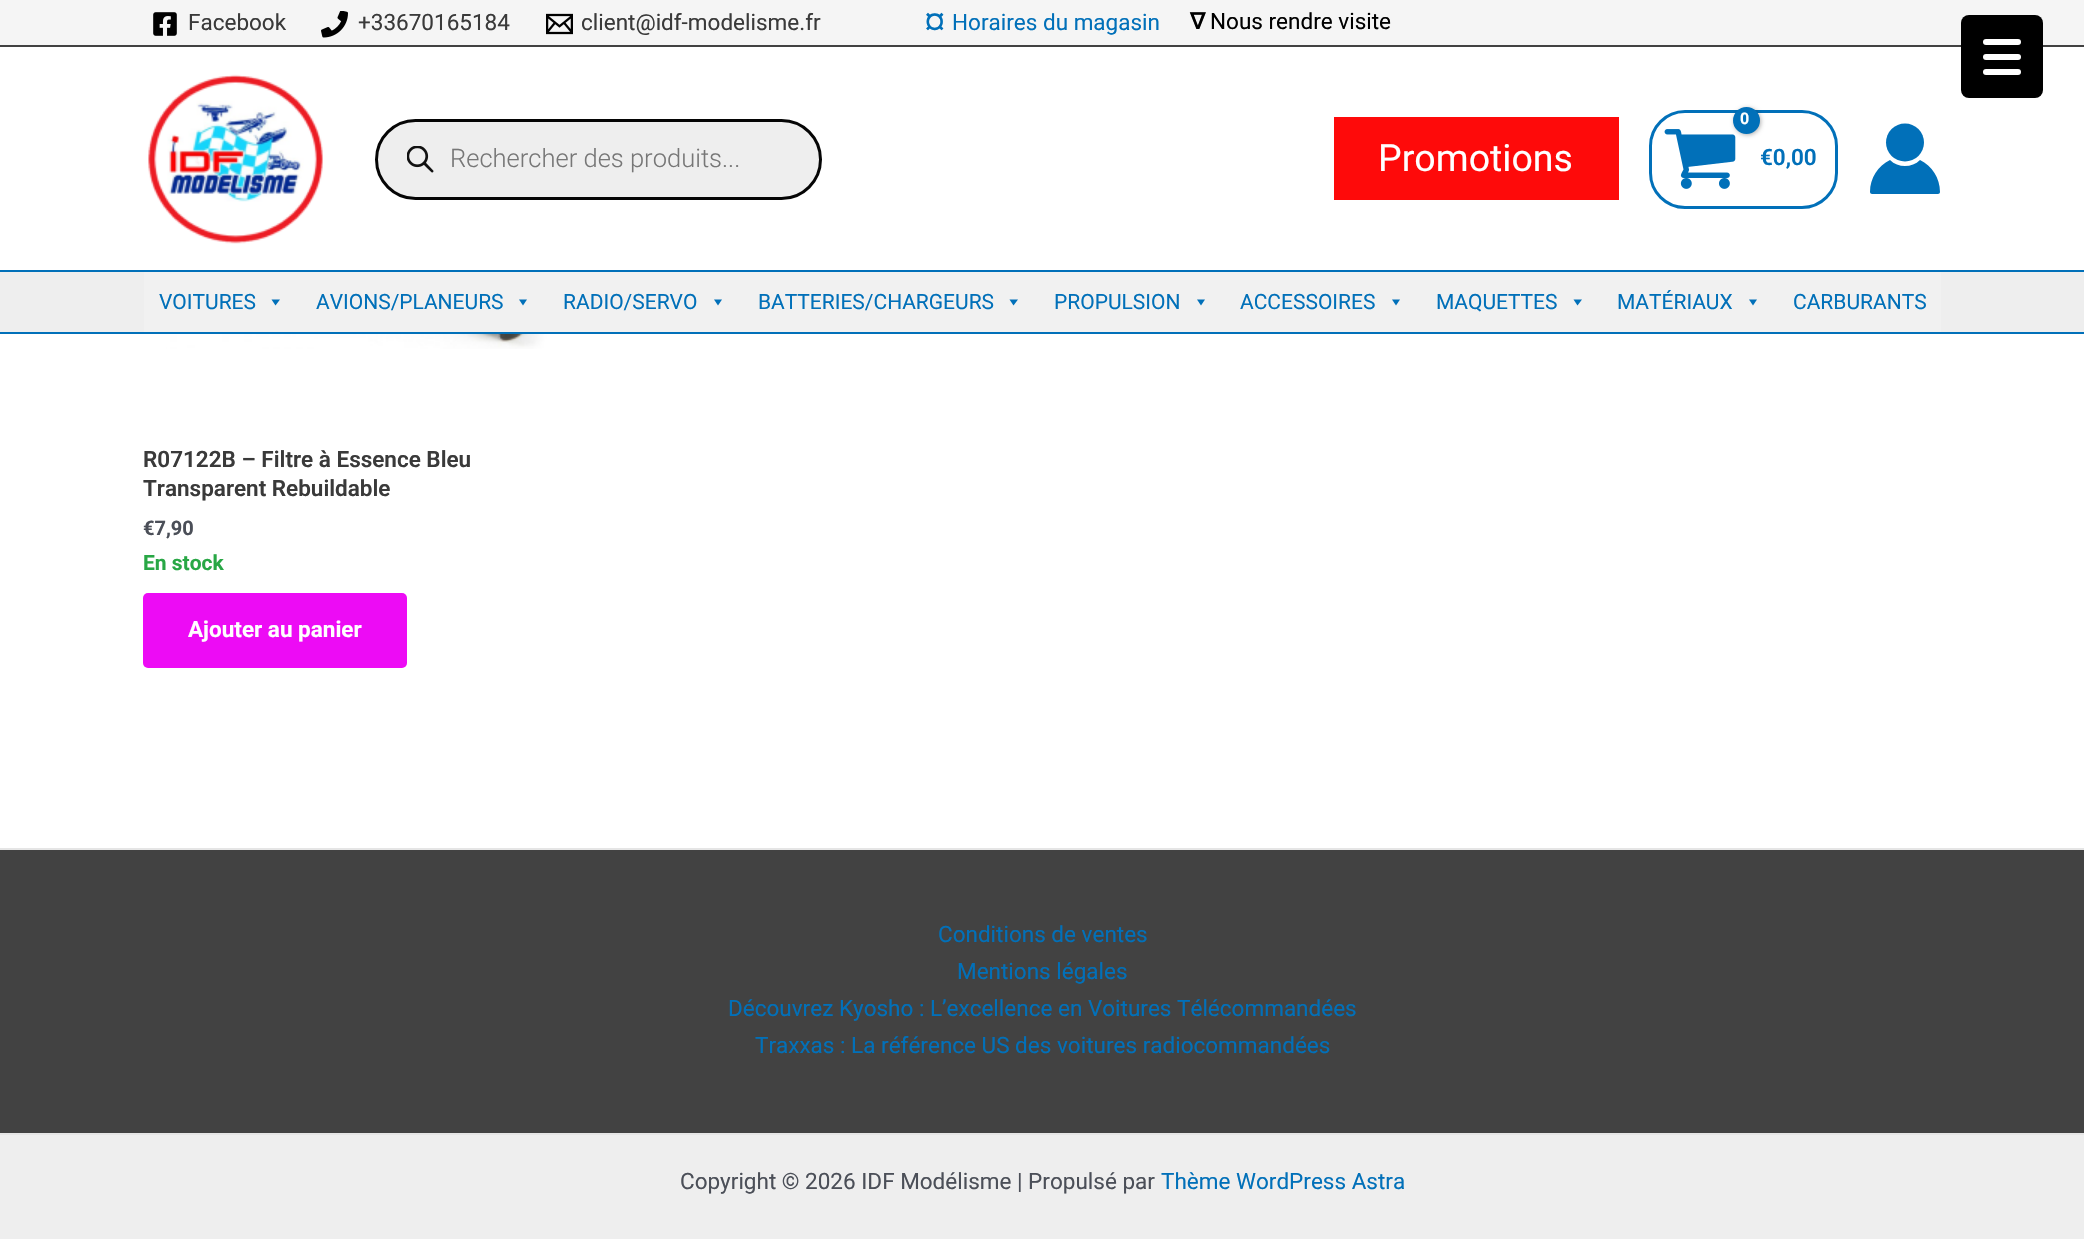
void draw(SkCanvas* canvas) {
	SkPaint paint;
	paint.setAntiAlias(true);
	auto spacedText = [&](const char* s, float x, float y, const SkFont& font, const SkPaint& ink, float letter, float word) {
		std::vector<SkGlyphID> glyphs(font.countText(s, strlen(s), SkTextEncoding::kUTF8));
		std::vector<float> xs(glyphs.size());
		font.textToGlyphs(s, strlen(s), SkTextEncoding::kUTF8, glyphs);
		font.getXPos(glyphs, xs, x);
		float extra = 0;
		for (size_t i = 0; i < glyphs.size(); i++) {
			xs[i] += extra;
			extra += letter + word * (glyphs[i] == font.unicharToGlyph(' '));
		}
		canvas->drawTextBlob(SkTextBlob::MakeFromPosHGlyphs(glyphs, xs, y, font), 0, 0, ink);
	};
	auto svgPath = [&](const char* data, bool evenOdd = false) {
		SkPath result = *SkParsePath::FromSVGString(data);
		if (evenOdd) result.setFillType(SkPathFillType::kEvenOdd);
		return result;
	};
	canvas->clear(0xffffffff);
	paint.setColor(0xfff5f5f5);
	canvas->drawRect(SkRect::MakeXYWH(0, 0, 2084, 45), paint);
	paint.setColor(0xff424242);
	canvas->drawRect(SkRect::MakeXYWH(0, 45, 2084, 2), paint);
	canvas->drawImageRect(SkImages::DeferredFromEncodedData(SkData::MakeFromFileName("img1.png")), SkRect::MakeXYWH(153, 12, 24, 24), SkSamplingOptions());
	SkFont f1(fontMgr->matchFamilyStyle("Roboto", SkFontStyle::Normal()), 22.5);
	f1.setSubpixel(true);
	paint.setColor(0xff3a3a3a);
	canvas->drawString("Facebook", 188, 30, f1, paint);
	canvas->drawImageRect(SkImages::DeferredFromEncodedData(SkData::MakeFromFileName("img2.png")), SkRect::MakeXYWH(321, 11, 27, 27), SkSamplingOptions());
	canvas->drawString("+33670165184", 358, 30, f1, paint);
	canvas->drawImageRect(SkImages::DeferredFromEncodedData(SkData::MakeFromFileName("img3.png")), SkRect::MakeXYWH(546, 13, 27, 22), SkSamplingOptions());
	canvas->drawString("client@idf-modelisme.fr", 581, 30, f1, paint);
	SkFont f2(fontMgr->matchFamilyStyle("Roboto", SkFontStyle::Bold()), 28);
	f2.setSubpixel(true);
	paint.setColor(0xff0170b9);
	canvas->drawString("¤", 925, 30, f2, paint);
	canvas->drawString("Horaires du magasin", 952, 30, f1, paint);
	SkFont f3(fontMgr->matchFamilyStyle("DejaVu Sans", SkFontStyle::Bold()), 22.5);
	f3.setSubpixel(true);
	paint.setColor(0xff000000);
	canvas->drawString("∇", 1190, 29, f3, paint);
	canvas->drawString("Nous rendre visite", 1210, 29, f1, paint);
	paint.setColor(0xff0170b9);
	canvas->drawRect(SkRect::MakeXYWH(0, 270, 2084, 2), paint);
	canvas->drawImageRect(SkImages::DeferredFromEncodedData(SkData::MakeFromFileName("img4.png")), SkRect::MakeXYWH(148, 74, 175, 170), SkSamplingOptions());
	paint.setColor(0xffeeeeee);
	canvas->drawRoundRect(SkRect::MakeXYWH(376.5, 120.5, 444, 78), 39, 39, paint);
	paint.setStroke(true);
	paint.setStrokeWidth(3);
	paint.setColor(0xff050505);
	canvas->drawRoundRect(SkRect::MakeXYWH(376.5, 120.5, 444, 78), 39, 39, paint);
	canvas->drawImageRect(SkImages::DeferredFromEncodedData(SkData::MakeFromFileName("img5.png")), SkRect::MakeXYWH(407, 146, 27, 27), SkSamplingOptions());
	SkFont f4(fontMgr->matchFamilyStyle("Roboto", SkFontStyle(300, SkFontStyle::kNormal_Width, SkFontStyle::kUpright_Slant)), 25.5);
	f4.setSubpixel(true);
	paint.setStroke(false);
	paint.setColor(0xff777777);
	canvas->drawString("Rechercher des produits...", 450, 167, f4, paint);
	paint.setColor(0xfffe0a0a);
	canvas->drawRect(SkRect::MakeXYWH(1334, 117, 285, 83), paint);
	SkFont f5(fontMgr->matchFamilyStyle("Roboto", SkFontStyle::Normal()), 37.5);
	f5.setSubpixel(true);
	paint.setColor(0xffffffff);
	canvas->drawString("Promotions", 1378, 171, f5, paint);
	paint.setStroke(true);
	paint.setColor(0xff0170b9);
	canvas->drawRoundRect(SkRect::MakeXYWH(1650.5, 111.5, 186, 96), 34.5, 34.5, paint);
	canvas->drawImageRect(SkImages::DeferredFromEncodedData(SkData::MakeFromFileName("img6.png")), SkRect::MakeXYWH(1664, 129, 72, 60), SkSamplingOptions());
	paint.setStroke(false);
	paint.setColor(0x4d000000);
	paint.setMaskFilter(SkMaskFilter::MakeBlur(kNormal_SkBlurStyle, 2));
	canvas->drawRoundRect(SkRect::MakeXYWH(1734, 108, 27, 27), 13.5, 13.5, paint);
	paint.setMaskFilter(nullptr);
	paint.setColor(0xff0170b9);
	canvas->drawCircle(1746.5, 120.5, 13.5, paint);
	SkFont f6(fontMgr->matchFamilyStyle("Roboto", SkFontStyle::Bold()), 16);
	f6.setSubpixel(true);
	paint.setColor(0xffffffff);
	spacedText("0", 1740, 124, f6, paint, -1, 0);
	SkFont f7(fontMgr->matchFamilyStyle("Roboto", SkFontStyle(600, SkFontStyle::kNormal_Width, SkFontStyle::kUpright_Slant)), 22.5);
	f7.setSubpixel(true);
	paint.setColor(0xff0170b9);
	canvas->drawString("€0,00", 1760, 165, f7, paint);
	canvas->drawPath(svgPath("M1920 160C1912 168 1898 168 1890 160C1878 166 1870 178 1870 192C1870 193 1871 194 1872 194H1938C1939 194 1940 193 1940 192C1940 178 1932 166 1920 160Z"), paint);
	canvas->drawCircle(1905, 142.5, 19, paint);
	paint.setColor(0xffeeeeee);
	canvas->drawRect(SkRect::MakeXYWH(0, 272, 2084, 60), paint);
	paint.setColor(0xff0170b9);
	canvas->drawRect(SkRect::MakeXYWH(0, 332, 2084, 2), paint);
	paint.setColor(0xfff1f1f1);
	canvas->drawRect(SkRect::MakeXYWH(144, 272, 1797, 60), paint);
	SkFont f8(fontMgr->matchFamilyStyle("Roboto", SkFontStyle::Normal()), 21);
	f8.setSubpixel(true);
	paint.setColor(0xff0170b9);
	canvas->drawString("VOITURES", 159, 309, f8, paint);
	canvas->drawPath(svgPath("M280 299.5L275.5 305.5L271.5 299.5Z"), paint);
	canvas->drawString("AVIONS/PLANEURS", 316, 309, f8, paint);
	canvas->drawPath(svgPath("M527 299.5L523 305.5L519 299.5Z"), paint);
	canvas->drawString("RADIO/SERVO", 563, 309, f8, paint);
	canvas->drawPath(svgPath("M722 299.5L718 305.5L714 299.5Z"), paint);
	canvas->drawString("BATTERIES/CHARGEURS", 758, 309, f8, paint);
	canvas->drawPath(svgPath("M1018 299.5L1013.5 305.5L1009.5 299.5Z"), paint);
	canvas->drawString("PROPULSION", 1054, 309, f8, paint);
	canvas->drawPath(svgPath("M1205 299.5L1201 305.5L1197 299.5Z"), paint);
	canvas->drawString("ACCESSOIRES", 1240, 309, f8, paint);
	canvas->drawPath(svgPath("M1400 299.5L1396 305.5L1392 299.5Z"), paint);
	canvas->drawString("MAQUETTES", 1436, 309, f8, paint);
	canvas->drawPath(svgPath("M1582 299.5L1577.5 305.5L1573.5 299.5Z"), paint);
	canvas->drawString("MATÉRIAUX", 1617, 309, f8, paint);
	canvas->drawPath(svgPath("M1757 299.5L1753 305.5L1749 299.5Z"), paint);
	canvas->drawString("CARBURANTS", 1793, 309, f8, paint);
	canvas->drawImageRect(SkImages::DeferredFromEncodedData(SkData::MakeFromFileName("img7.png")), SkRect::MakeXYWH(166, 334, 381, 15), SkSamplingOptions());
	paint.setColor(0xff3a3a3a);
	canvas->drawString("R07122B – Filtre à Essence Bleu", 143, 467, f7, paint);
	canvas->drawString("Transparent Rebuildable", 143, 496, f7, paint);
	SkFont f9(fontMgr->matchFamilyStyle("Roboto", SkFontStyle::Bold()), 20);
	f9.setSubpixel(true);
	paint.setColor(0xff4b4f58);
	canvas->drawString("€7,90", 143, 535, f9, paint);
	SkFont f10(fontMgr->matchFamilyStyle("Roboto", SkFontStyle::Bold()), 21);
	f10.setSubpixel(true);
	paint.setColor(0xff28a745);
	canvas->drawString("En stock", 143, 570, f10, paint);
	paint.setColor(0xffed0bf5);
	canvas->drawRoundRect(SkRect::MakeXYWH(143, 593, 264, 75), 5, 5, paint);
	SkFont f11(fontMgr->matchFamilyStyle("Roboto", SkFontStyle::Bold()), 22.5);
	f11.setSubpixel(true);
	paint.setColor(0xffffffff);
	canvas->drawString("Ajouter au panier", 188, 637, f11, paint);
	paint.setColor(0xff424242);
	canvas->drawRect(SkRect::MakeXYWH(0, 850, 2084, 283), paint);
	paint.setColor(0xffe5e5e5);
	canvas->drawRect(SkRect::MakeXYWH(0, 848, 2084, 2), paint);
	paint.setColor(0xff0170b9);
	canvas->drawString("Conditions de ventes", 938, 942, f1, paint);
	canvas->drawString("Mentions légales", 957, 979, f1, paint);
	canvas->drawString("Découvrez Kyosho : L’excellence en Voitures Télécommandées", 728, 1016, f1, paint);
	canvas->drawString("Traxxas : La référence US des voitures radiocommandées", 755, 1053, f1, paint);
	paint.setColor(0xffeeeeee);
	canvas->drawRect(SkRect::MakeXYWH(0, 1135, 2084, 104), paint);
	paint.setColor(0xffe5e5e5);
	canvas->drawRect(SkRect::MakeXYWH(0, 1133, 2084, 2), paint);
	paint.setColor(0xff4b4f58);
	canvas->drawString("Copyright © 2026 IDF Modélisme | Propulsé par", 680, 1189, f1, paint);
	paint.setColor(0xff0170b9);
	canvas->drawString("Thème WordPress Astra", 1161, 1189, f1, paint);
	paint.setColor(0xff000000);
	canvas->drawRoundRect(SkRect::MakeXYWH(1961, 15, 82, 83), 8, 8, paint);
	paint.setColor(0xffffffff);
	canvas->drawRoundRect(SkRect::MakeXYWH(1983, 54, 38, 6), 3, 3, paint);
	canvas->drawRoundRect(SkRect::MakeXYWH(1983, 39, 38, 6), 3, 3, paint);
	canvas->drawRoundRect(SkRect::MakeXYWH(1983, 69, 38, 6), 3, 3, paint);
}
